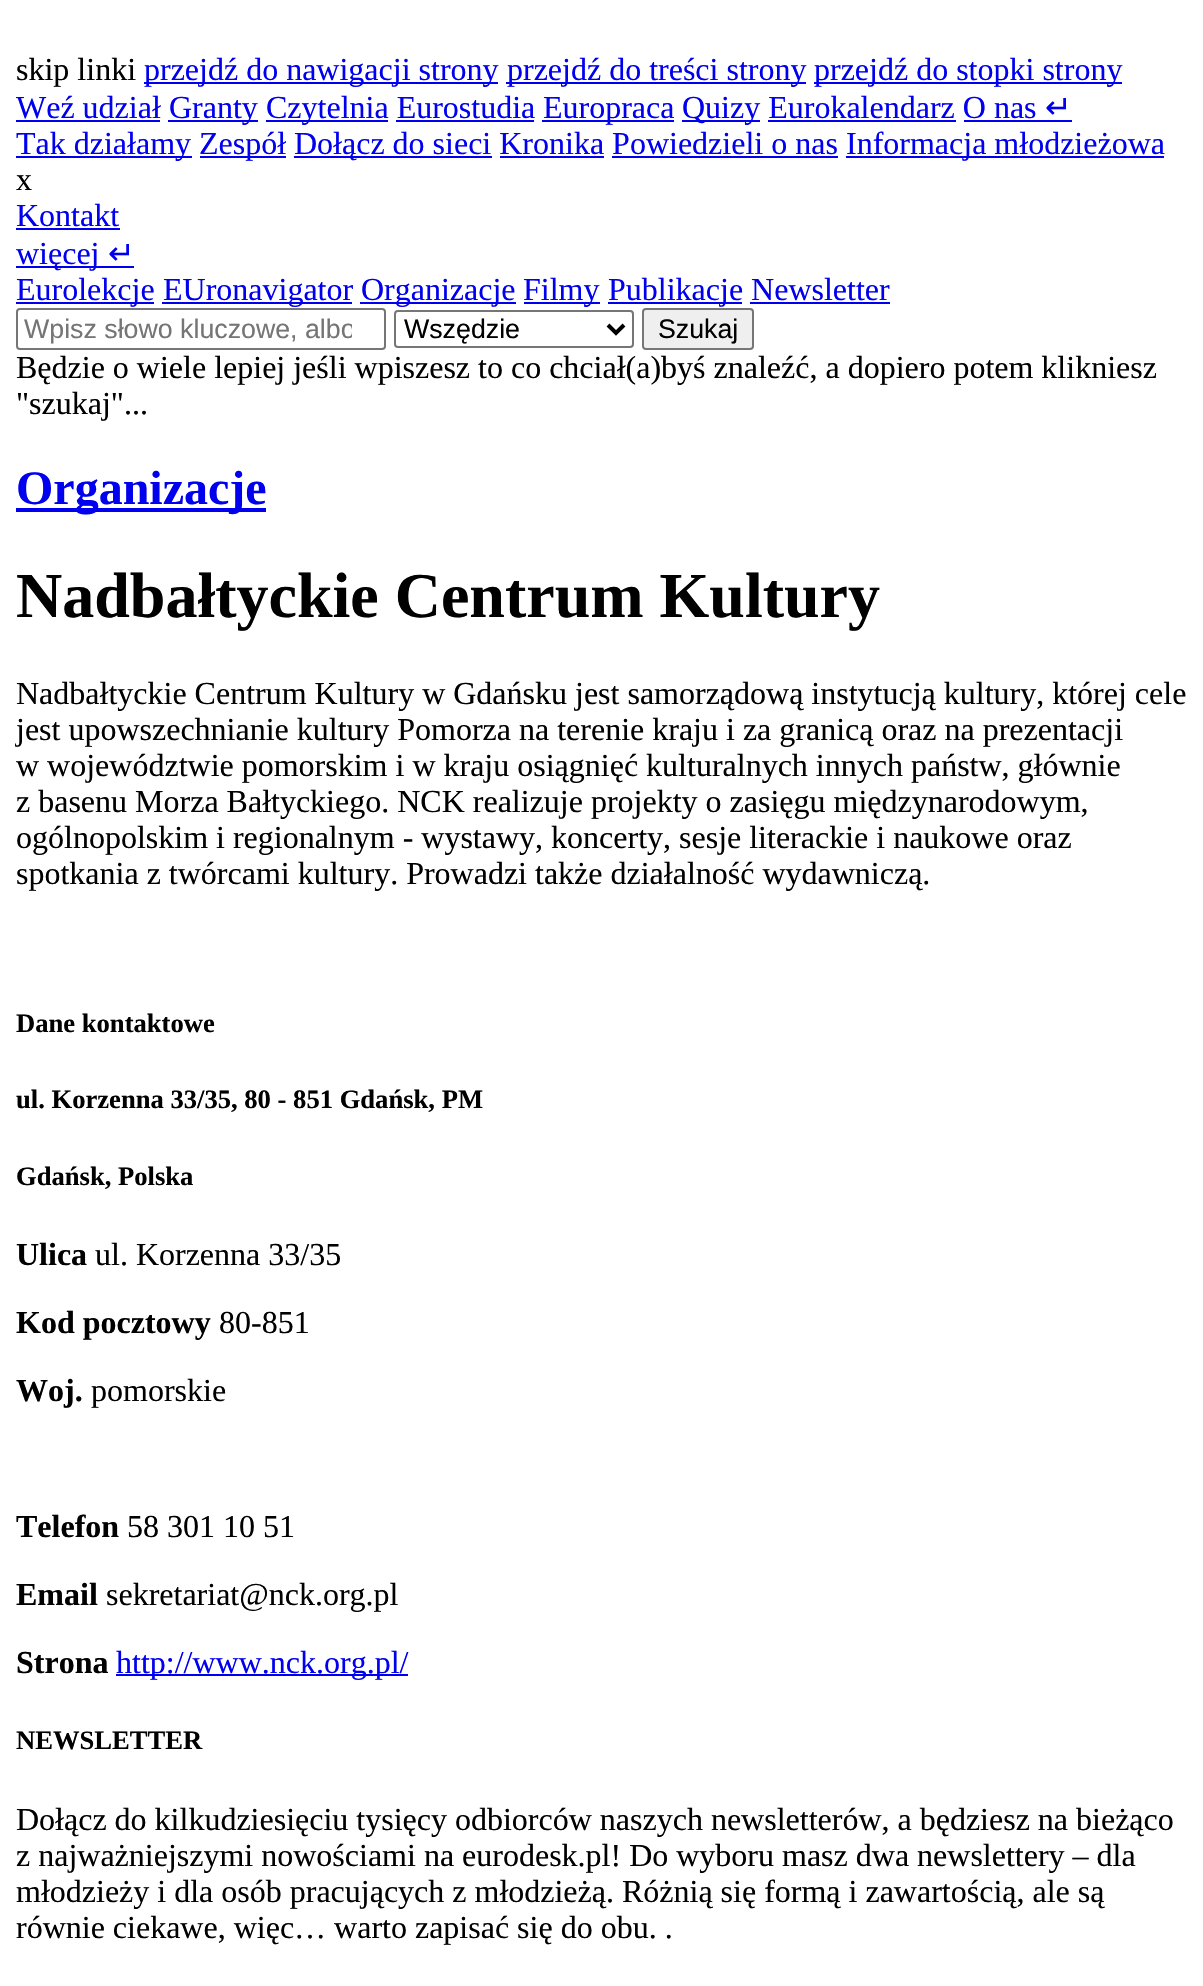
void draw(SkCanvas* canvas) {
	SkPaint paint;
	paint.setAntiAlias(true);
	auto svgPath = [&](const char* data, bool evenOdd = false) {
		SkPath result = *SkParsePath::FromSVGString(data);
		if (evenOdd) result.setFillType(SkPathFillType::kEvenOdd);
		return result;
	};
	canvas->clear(0xffffffff);
	SkFont f1(fontMgr->matchFamilyStyle("Liberation Serif", SkFontStyle::Normal()), 32);
	f1.setSubpixel(true);
	paint.setColor(0xff000000);
	canvas->drawString("skip linki", 16, 80, f1, paint);
	paint.setColor(0xff0000ee);
	canvas->drawRect(SkRect::MakeXYWH(144, 82, 354, 2), paint);
	canvas->drawString("przejdź do nawigacji strony", 144, 80, f1, paint);
	canvas->drawRect(SkRect::MakeXYWH(506, 82, 300, 2), paint);
	canvas->drawString("przejdź do treści strony", 507, 80, f1, paint);
	canvas->drawRect(SkRect::MakeXYWH(814, 82, 308, 2), paint);
	canvas->drawString("przejdź do stopki strony", 814, 80, f1, paint);
	canvas->drawString("Weź udział", 16, 118, f1, paint);
	canvas->drawRect(SkRect::MakeXYWH(16, 120, 144, 2), paint);
	canvas->drawRect(SkRect::MakeXYWH(168, 120, 90, 2), paint);
	canvas->drawString("Granty", 169, 118, f1, paint);
	canvas->drawRect(SkRect::MakeXYWH(266, 120, 122, 2), paint);
	canvas->drawString("Czytelnia Eurostudia", 266, 118, f1, paint);
	canvas->drawRect(SkRect::MakeXYWH(542, 120, 132, 2), paint);
	canvas->drawString("Europraca", 543, 118, f1, paint);
	canvas->drawRect(SkRect::MakeXYWH(682, 120, 78, 2), paint);
	canvas->drawString("Quizy Eurokalendarz O nas", 682, 118, f1, paint);
	SkFont f2(fontMgr->matchFamilyStyle("DejaVu Sans", SkFontStyle::Normal()), 32);
	f2.setSubpixel(true);
	canvas->drawString("↵", 1045, 118, f2, paint);
	canvas->drawRect(SkRect::MakeXYWH(964, 120, 108, 2), paint);
	canvas->drawRect(SkRect::MakeXYWH(396, 120, 138, 2), paint);
	canvas->drawRect(SkRect::MakeXYWH(768, 120, 188, 2), paint);
	canvas->drawRect(SkRect::MakeXYWH(16, 156, 176, 2), paint);
	canvas->drawString("Tak działamy", 16, 154, f1, paint);
	canvas->drawRect(SkRect::MakeXYWH(200, 156, 86, 2), paint);
	canvas->drawString("Zespół", 199, 154, f1, paint);
	canvas->drawRect(SkRect::MakeXYWH(294, 156, 198, 2), paint);
	canvas->drawString("Dołącz do sieci Kronika Powiedzieli o nas", 294, 154, f1, paint);
	canvas->drawRect(SkRect::MakeXYWH(846, 156, 318, 2), paint);
	canvas->drawString("Informacja młodzieżowa", 846, 154, f1, paint);
	canvas->drawRect(SkRect::MakeXYWH(500, 156, 104, 2), paint);
	canvas->drawRect(SkRect::MakeXYWH(612, 156, 226, 2), paint);
	paint.setColor(0xff000000);
	canvas->drawString("x", 16, 190, f1, paint);
	paint.setColor(0xff0000ee);
	canvas->drawString("Kontakt", 16, 226, f1, paint);
	canvas->drawRect(SkRect::MakeXYWH(16, 228, 104, 2), paint);
	canvas->drawRect(SkRect::MakeXYWH(16, 266, 118, 2), paint);
	canvas->drawString("więcej", 16, 264, f1, paint);
	canvas->drawString("↵", 108, 264, f2, paint);
	canvas->drawRect(SkRect::MakeXYWH(16, 302, 138, 2), paint);
	canvas->drawString("Eurolekcje", 16, 300, f1, paint);
	canvas->drawRect(SkRect::MakeXYWH(162, 302, 190, 2), paint);
	canvas->drawString("EUronavigator", 163, 300, f1, paint);
	canvas->drawRect(SkRect::MakeXYWH(360, 302, 156, 2), paint);
	canvas->drawString("Organizacje", 361, 300, f1, paint);
	canvas->drawRect(SkRect::MakeXYWH(524, 302, 76, 2), paint);
	canvas->drawString("Filmy", 523, 300, f1, paint);
	canvas->drawRect(SkRect::MakeXYWH(608, 302, 134, 2), paint);
	canvas->drawString("Publikacje Newsletter", 608, 300, f1, paint);
	canvas->drawRect(SkRect::MakeXYWH(750, 302, 140, 2), paint);
	paint.setStroke(true);
	paint.setStrokeWidth(2);
	paint.setColor(0xff767676);
	canvas->drawRoundRect(SkRect::MakeXYWH(17, 309, 368, 40), 3, 3, paint);
	canvas->save();
	canvas->clipRect(SkRect::MakeXYWH(24, 314, 328, 30));
	SkFont f3(fontMgr->matchFamilyStyle("Liberation Sans", SkFontStyle::Normal()), 26.75);
	f3.setSubpixel(true);
	paint.setStroke(false);
	paint.setColor(0xff757575);
	canvas->drawString("Wpisz słowo kluczowe, albo", 24, 338, f3, paint);
	canvas->restore();
	paint.setStroke(true);
	paint.setColor(0xff767676);
	canvas->drawRoundRect(SkRect::MakeXYWH(395, 311, 238, 36), 3, 3, paint);
	paint.setStrokeWidth(4);
	paint.setColor(0xff000000);
	canvas->drawPath(svgPath("M608 325L616 333L624 325"), paint);
	paint.setStroke(false);
	canvas->drawString("Wszędzie", 404, 338, f3, paint);
	paint.setColor(0xffefefef);
	canvas->drawRoundRect(SkRect::MakeXYWH(643, 309, 110, 40), 3, 3, paint);
	paint.setStroke(true);
	paint.setStrokeWidth(2);
	paint.setColor(0xff767676);
	canvas->drawRoundRect(SkRect::MakeXYWH(643, 309, 110, 40), 3, 3, paint);
	paint.setStroke(false);
	paint.setColor(0xff000000);
	canvas->drawString("Szukaj", 658, 338, f3, paint);
	canvas->drawString("Będzie o wiele lepiej jeśli wpiszesz to co chciał(a)byś znaleźć, a dopiero potem klikniesz", 16, 378, f1, paint);
	canvas->drawString("\"szukaj\"...", 16, 414, f1, paint);
	paint.setColor(0xff0000ee);
	canvas->drawRect(SkRect::MakeXYWH(16, 508, 250, 4), paint);
	SkFont f4(fontMgr->matchFamilyStyle("Liberation Serif", SkFontStyle::Bold()), 48);
	f4.setSubpixel(true);
	canvas->drawString("Organizacje", 16, 504, f4, paint);
	SkFont f5(fontMgr->matchFamilyStyle("Liberation Serif", SkFontStyle::Bold()), 64);
	f5.setSubpixel(true);
	paint.setColor(0xff000000);
	canvas->drawString("Nadbałtyckie Centrum Kultury", 16, 617, f5, paint);
	canvas->drawString("Nadbałtyckie Centrum Kultury w Gdańsku jest samorządową instytucją kultury, której cele", 16, 704, f1, paint);
	canvas->drawString("jest upowszechnianie kultury Pomorza na terenie kraju i za granicą oraz na prezentacji", 16, 740, f1, paint);
	canvas->drawString("w województwie pomorskim i w kraju osiągnięć kulturalnych innych państw, głównie", 16, 776, f1, paint);
	canvas->drawString("z basenu Morza Bałtyckiego. NCK realizuje projekty o zasięgu międzynarodowym,", 16, 812, f1, paint);
	canvas->drawString("ogólnopolskim i regionalnym - wystawy, koncerty, sesje literackie i naukowe oraz", 16, 848, f1, paint);
	canvas->drawString("spotkania z twórcami kultury. Prowadzi także działalność wydawniczą.", 16, 884, f1, paint);
	SkFont f6(fontMgr->matchFamilyStyle("Liberation Serif", SkFontStyle::Bold()), 26.6);
	f6.setSubpixel(true);
	canvas->drawString("Dane kontaktowe", 16, 1032, f6, paint);
	canvas->drawString("ul. Korzenna 33/35, 80 - 851 Gdańsk, PM", 16, 1108, f6, paint);
	canvas->drawString("Gdańsk, Polska", 16, 1185, f6, paint);
	SkFont f7(fontMgr->matchFamilyStyle("Liberation Serif", SkFontStyle::Bold()), 32);
	f7.setSubpixel(true);
	canvas->drawString("Ulica", 16, 1265, f7, paint);
	canvas->drawString("ul. Korzenna 33/35", 95, 1265, f1, paint);
	canvas->drawString("Kod pocztowy", 16, 1333, f7, paint);
	canvas->drawString("80-851", 219, 1333, f1, paint);
	canvas->drawString("Woj.", 16, 1401, f7, paint);
	canvas->drawString("pomorskie", 91, 1401, f1, paint);
	canvas->drawString("Telefon", 16, 1537, f7, paint);
	canvas->drawString("58 301 10 51", 127, 1537, f1, paint);
	canvas->drawString("Email", 16, 1605, f7, paint);
	canvas->drawString("sekretariat@nck.org.pl", 106, 1605, f1, paint);
	canvas->drawString("Strona", 16, 1673, f7, paint);
	paint.setColor(0xff0000ee);
	canvas->drawRect(SkRect::MakeXYWH(116, 1674, 292, 2), paint);
	canvas->drawString("http://www.nck.org.pl/", 116, 1673, f1, paint);
	paint.setColor(0xff000000);
	canvas->drawString("NEWSLETTER", 16, 1749, f6, paint);
	canvas->drawString("Dołącz do kilkudziesięciu tysięcy odbiorców naszych newsletterów, a będziesz na bieżąco", 16, 1830, f1, paint);
	canvas->drawString("z najważniejszymi nowościami na eurodesk.pl! Do wyboru masz dwa newslettery – dla", 16, 1866, f1, paint);
	canvas->drawString("młodzieży i dla osób pracujących z młodzieżą. Różnią się formą i zawartością, ale są", 16, 1902, f1, paint);
	canvas->drawString("równie ciekawe, więc… warto zapisać się do obu. .", 16, 1938, f1, paint);
}
